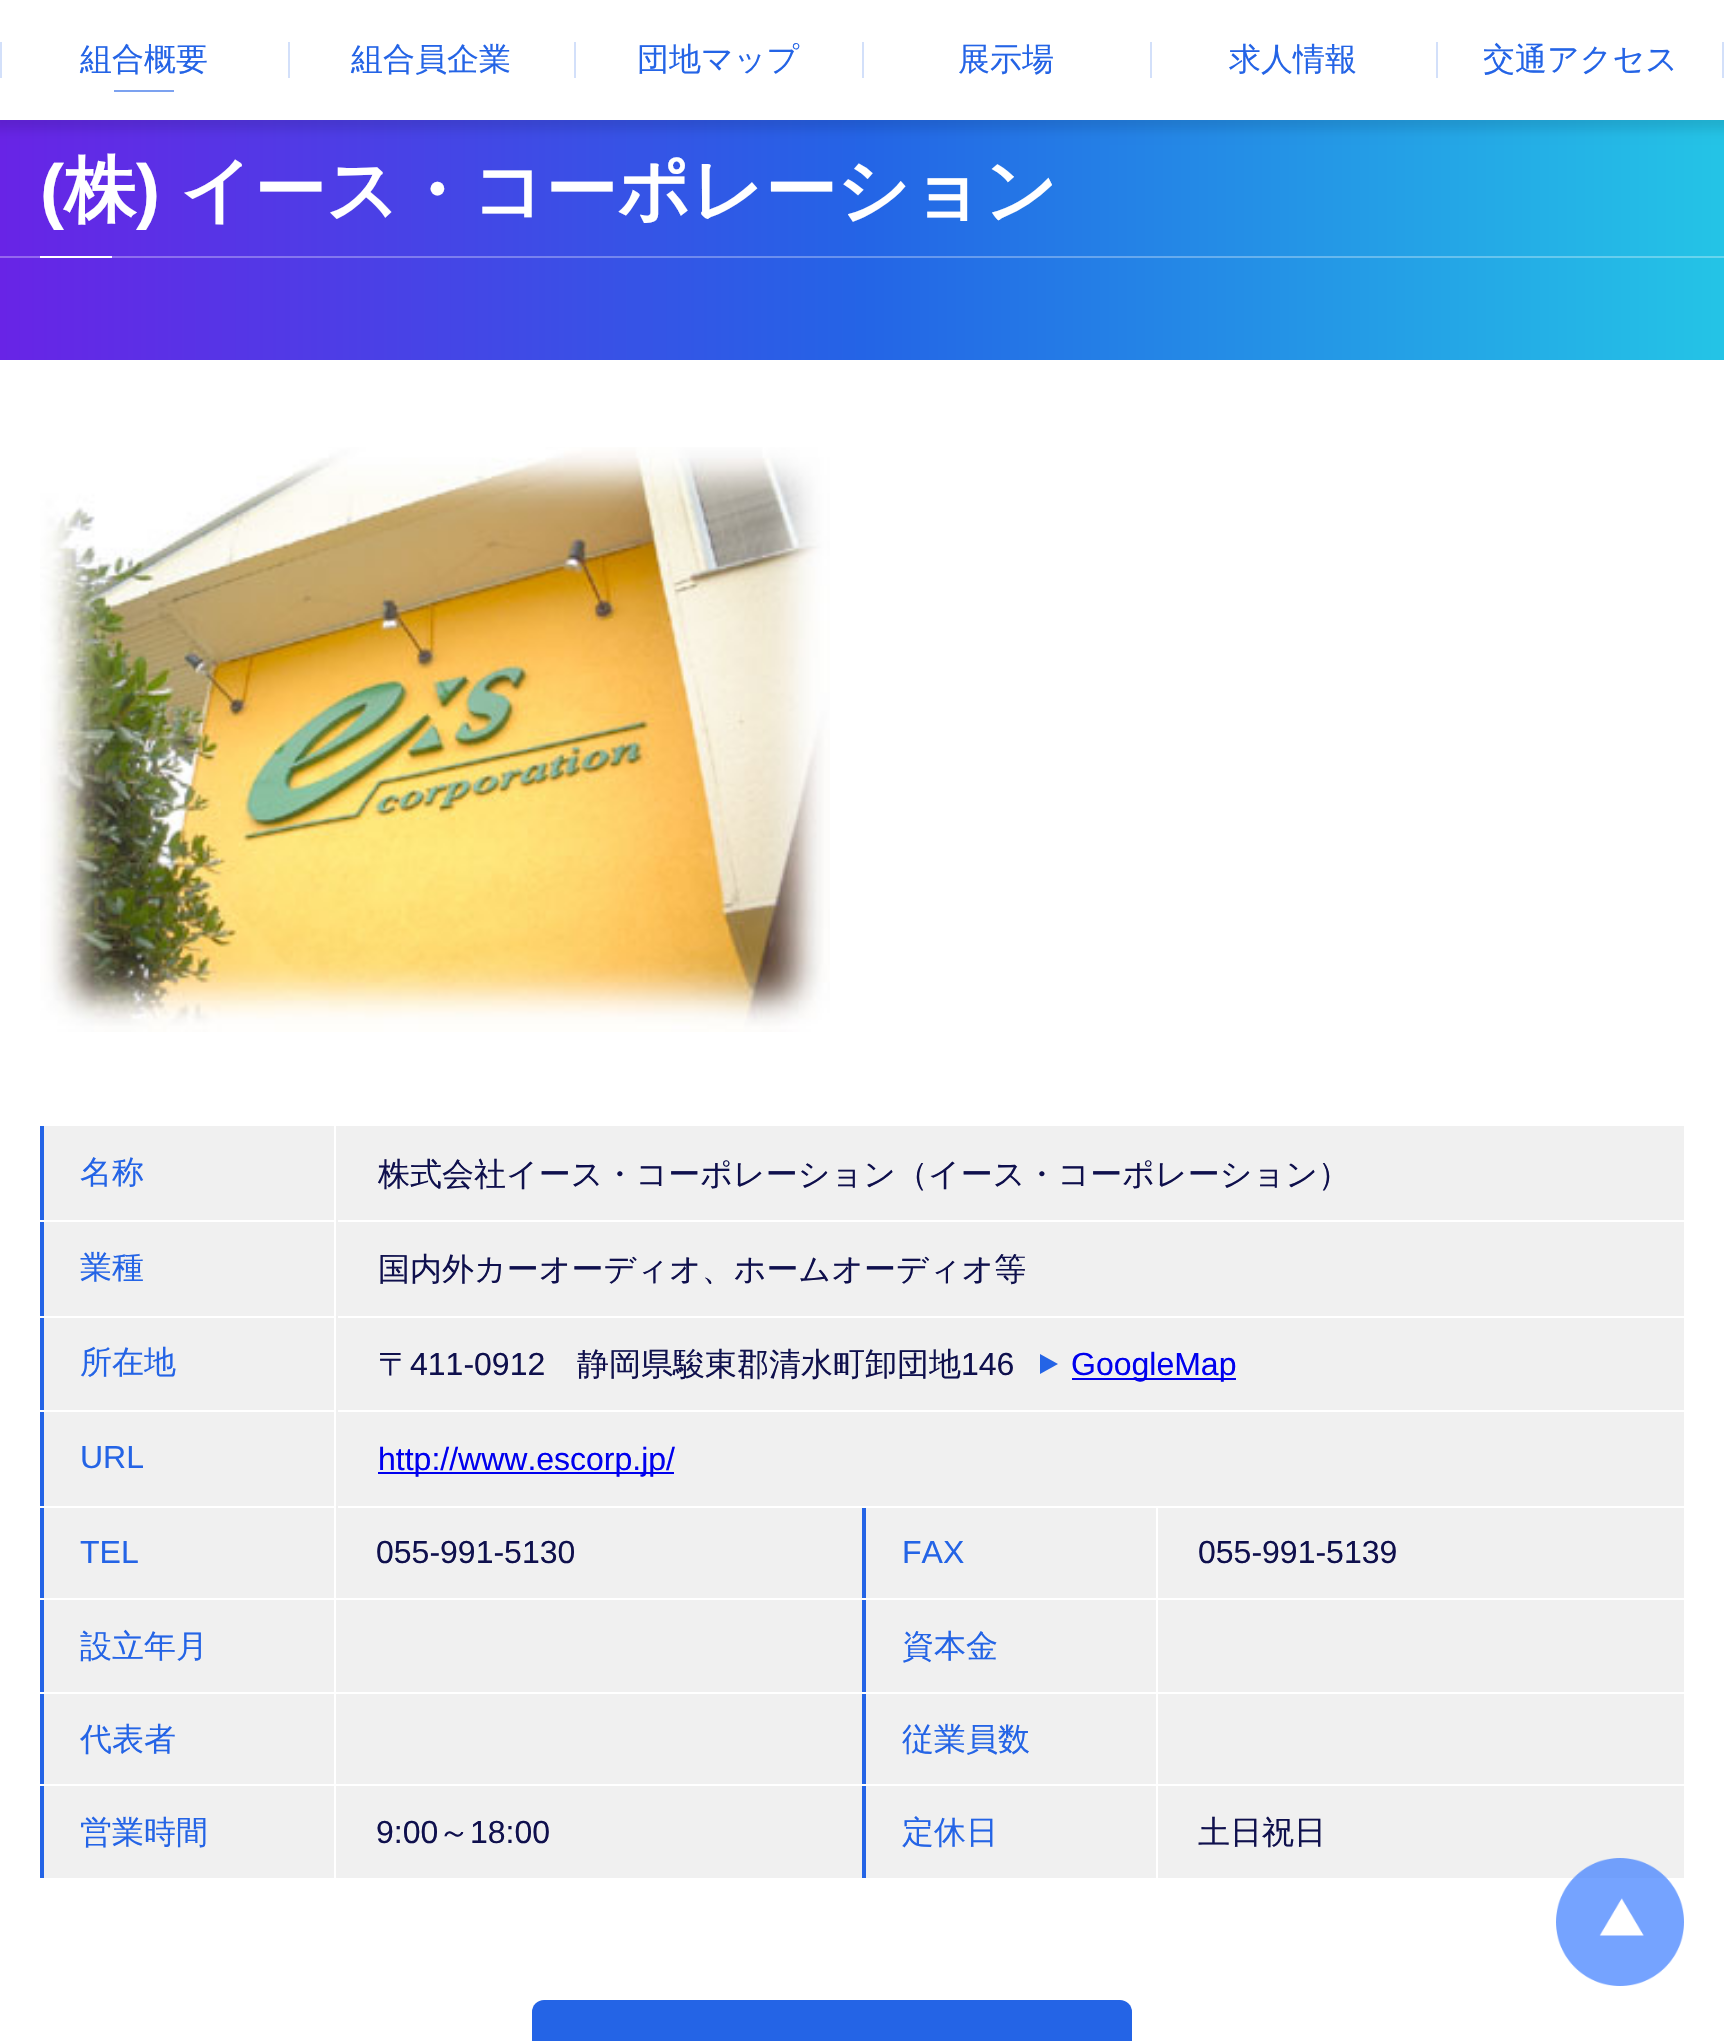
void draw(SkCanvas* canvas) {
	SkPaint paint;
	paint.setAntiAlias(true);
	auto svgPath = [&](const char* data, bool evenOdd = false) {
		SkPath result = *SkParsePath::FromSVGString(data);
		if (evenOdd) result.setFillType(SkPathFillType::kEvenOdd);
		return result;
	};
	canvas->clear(0xffffffff);
	{
		const SkColor colors[] = {0xff6824e6, 0xff2464e6, 0xff24c4e6};
		const float stops[] = {0, 0.5, 1};
		const SkPoint ends[] = {{0, 200}, {1724, 200}};
		paint.setShader(SkGradientShader::MakeLinear(ends, colors, stops, 3, SkTileMode::kClamp));
		paint.setAlpha(255);
	}
	canvas->drawRect(SkRect::MakeXYWH(0, 120, 1724, 240), paint);
	paint.setShader(nullptr);
	paint.setColor(0x1a000000);
	paint.setMaskFilter(SkMaskFilter::MakeBlur(kNormal_SkBlurStyle, 5));
	canvas->drawRect(SkRect::MakeXYWH(-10, -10, 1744, 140), paint);
	paint.setMaskFilter(nullptr);
	paint.setColor(0xffffffff);
	canvas->drawRect(SkRect::MakeXYWH(0, 0, 1724, 120), paint);
	paint.setColor(0xffd3e0fa);
	canvas->drawRect(SkRect::MakeXYWH(0, 42, 2, 36), paint);
	SkFont f1(fontMgr->matchFamilyStyle("WenQuanYi Zen Hei", SkFontStyle(500, SkFontStyle::kNormal_Width, SkFontStyle::kUpright_Slant)), 32);
	f1.setSubpixel(true);
	paint.setColor(0xff2464e6);
	canvas->drawString("組合概要", 80, 70, f1, paint);
	paint.setColor(0xff7ca2f0);
	canvas->drawRect(SkRect::MakeXYWH(114, 90, 60, 2), paint);
	paint.setColor(0xffd3e0fa);
	canvas->drawRect(SkRect::MakeXYWH(288, 42, 2, 36), paint);
	paint.setColor(0xff2464e6);
	canvas->drawString("組合員企業", 351, 70, f1, paint);
	paint.setColor(0xffd3e0fa);
	canvas->drawRect(SkRect::MakeXYWH(574, 42, 2, 36), paint);
	paint.setColor(0xff2464e6);
	canvas->drawString("団地マップ", 637, 70, f1, paint);
	paint.setColor(0xffd3e0fa);
	canvas->drawRect(SkRect::MakeXYWH(862, 42, 2, 36), paint);
	paint.setColor(0xff2464e6);
	canvas->drawString("展示場", 958, 70, f1, paint);
	paint.setColor(0xffd3e0fa);
	canvas->drawRect(SkRect::MakeXYWH(1150, 42, 2, 36), paint);
	paint.setColor(0xff2464e6);
	canvas->drawString("求人情報", 1229, 70, f1, paint);
	paint.setColor(0xffd3e0fa);
	canvas->drawRect(SkRect::MakeXYWH(1722, 42, 2, 36), paint);
	canvas->drawRect(SkRect::MakeXYWH(1436, 42, 2, 36), paint);
	paint.setColor(0xff2464e6);
	canvas->drawString("交通アクセス", 1483, 70, f1, paint);
	{
		const SkColor colors[] = {0xff9566ee, 0xff6693ee, 0xff66d6ee};
		const float stops[] = {0, 0.5, 1};
		const SkPoint ends[] = {{0, 200}, {1724, 200}};
		paint.setShader(SkGradientShader::MakeLinear(ends, colors, stops, 3, SkTileMode::kClamp));
		paint.setAlpha(255);
	}
	canvas->drawRect(SkRect::MakeXYWH(0, 256, 1724, 2), paint);
	SkFont f2(fontMgr->matchFamilyStyle("Liberation Sans", SkFontStyle::Bold()), 72);
	f2.setSubpixel(true);
	paint.setShader(nullptr);
	paint.setColor(0xffffffff);
	canvas->drawString("(", 40, 215, f2, paint);
	SkFont f3(fontMgr->matchFamilyStyle("WenQuanYi Zen Hei", SkFontStyle::Bold()), 72);
	f3.setSubpixel(true);
	canvas->drawString("株", 64, 215, f3, paint);
	canvas->drawString(")", 136, 215, f2, paint);
	canvas->drawString("イース・コーポレーション", 180, 215, f3, paint);
	canvas->drawRect(SkRect::MakeXYWH(40, 256, 72, 2), paint);
	canvas->drawImageRect(SkImages::DeferredFromEncodedData(SkData::MakeFromFileName("img1.png")), SkRect::MakeXYWH(40, 447, 790, 585), SkSamplingOptions());
	paint.setColor(0xfff0f0f0);
	canvas->drawRect(SkRect::MakeXYWH(44, 1126, 290, 94), paint);
	paint.setColor(0xff2464e6);
	canvas->drawRect(SkRect::MakeXYWH(40, 1126, 4, 94), paint);
	canvas->drawString("名称", 80, 1183, f1, paint);
	paint.setColor(0xfff0f0f0);
	canvas->drawRect(SkRect::MakeXYWH(338, 1126, 1346, 94), paint);
	canvas->drawRect(SkRect::MakeXYWH(336, 1126, 2, 382), paint);
	paint.setColor(0xff0f104d);
	canvas->drawString("株式会社イース・コーポレーション（イース・コーポレーション）", 378, 1185, f1, paint);
	paint.setColor(0xfff0f0f0);
	canvas->drawRect(SkRect::MakeXYWH(44, 1222, 290, 94), paint);
	paint.setColor(0xff2464e6);
	canvas->drawRect(SkRect::MakeXYWH(40, 1222, 4, 94), paint);
	canvas->drawString("業種", 80, 1278, f1, paint);
	paint.setColor(0xfff0f0f0);
	canvas->drawRect(SkRect::MakeXYWH(338, 1222, 1346, 94), paint);
	paint.setColor(0xff0f104d);
	canvas->drawString("国内外カーオーディオ、ホームオーディオ等", 378, 1280, f1, paint);
	paint.setColor(0xfff0f0f0);
	canvas->drawRect(SkRect::MakeXYWH(44, 1318, 290, 92), paint);
	paint.setColor(0xff2464e6);
	canvas->drawRect(SkRect::MakeXYWH(40, 1318, 4, 92), paint);
	canvas->drawString("所在地", 80, 1373, f1, paint);
	paint.setColor(0xfff0f0f0);
	canvas->drawRect(SkRect::MakeXYWH(338, 1318, 1346, 92), paint);
	paint.setColor(0xff0f104d);
	canvas->drawString("〒", 378, 1375, f1, paint);
	SkFont f4(fontMgr->matchFamilyStyle("Liberation Sans", SkFontStyle::Normal()), 32);
	f4.setSubpixel(true);
	canvas->drawString("411-0912", 410, 1375, f4, paint);
	canvas->drawString("静岡県駿東郡清水町卸団地", 577, 1375, f1, paint);
	canvas->drawString("146", 961, 1375, f4, paint);
	paint.setColor(0xff2464e6);
	canvas->drawPath(svgPath("M1040 1374V1354L1058 1364Z"), paint);
	paint.setColor(0xff0000ee);
	canvas->drawRect(SkRect::MakeXYWH(1072, 1378, 164, 2), paint);
	canvas->drawString("GoogleMap", 1071, 1375, f4, paint);
	paint.setColor(0xfff0f0f0);
	canvas->drawRect(SkRect::MakeXYWH(44, 1412, 290, 94), paint);
	paint.setColor(0xff2464e6);
	canvas->drawRect(SkRect::MakeXYWH(40, 1412, 4, 94), paint);
	canvas->drawString("URL", 80, 1468, f4, paint);
	paint.setColor(0xfff0f0f0);
	canvas->drawRect(SkRect::MakeXYWH(338, 1412, 1346, 94), paint);
	paint.setColor(0xff0000ee);
	canvas->drawRect(SkRect::MakeXYWH(378, 1472, 296, 2), paint);
	canvas->drawString("http://www.escorp.jp/", 378, 1470, f4, paint);
	paint.setColor(0xfff0f0f0);
	canvas->drawRect(SkRect::MakeXYWH(44, 1508, 290, 90), paint);
	paint.setColor(0xff2464e6);
	canvas->drawRect(SkRect::MakeXYWH(40, 1508, 4, 90), paint);
	canvas->drawString("TEL", 80, 1563, f4, paint);
	paint.setColor(0xfff0f0f0);
	canvas->drawRect(SkRect::MakeXYWH(336, 1508, 526, 90), paint);
	paint.setColor(0xff0f104d);
	canvas->drawString("055-991-5130", 376, 1563, f4, paint);
	paint.setColor(0xfff0f0f0);
	canvas->drawRect(SkRect::MakeXYWH(866, 1508, 290, 90), paint);
	paint.setColor(0xff2464e6);
	canvas->drawRect(SkRect::MakeXYWH(862, 1508, 4, 90), paint);
	canvas->drawString("FAX", 902, 1563, f4, paint);
	paint.setColor(0xfff0f0f0);
	canvas->drawRect(SkRect::MakeXYWH(1158, 1508, 526, 90), paint);
	paint.setColor(0xff0f104d);
	canvas->drawString("055-991-5139", 1198, 1563, f4, paint);
	paint.setColor(0xfff0f0f0);
	canvas->drawRect(SkRect::MakeXYWH(44, 1600, 290, 92), paint);
	paint.setColor(0xff2464e6);
	canvas->drawRect(SkRect::MakeXYWH(40, 1600, 4, 92), paint);
	canvas->drawString("設立年月", 80, 1657, f1, paint);
	paint.setColor(0xfff0f0f0);
	canvas->drawRect(SkRect::MakeXYWH(336, 1600, 526, 92), paint);
	canvas->drawRect(SkRect::MakeXYWH(866, 1600, 290, 92), paint);
	paint.setColor(0xff2464e6);
	canvas->drawRect(SkRect::MakeXYWH(862, 1600, 4, 92), paint);
	canvas->drawString("資本金", 902, 1657, f1, paint);
	paint.setColor(0xfff0f0f0);
	canvas->drawRect(SkRect::MakeXYWH(1158, 1600, 526, 92), paint);
	canvas->drawRect(SkRect::MakeXYWH(44, 1694, 290, 90), paint);
	paint.setColor(0xff2464e6);
	canvas->drawRect(SkRect::MakeXYWH(40, 1694, 4, 90), paint);
	canvas->drawString("代表者", 80, 1750, f1, paint);
	paint.setColor(0xfff0f0f0);
	canvas->drawRect(SkRect::MakeXYWH(336, 1694, 526, 90), paint);
	canvas->drawRect(SkRect::MakeXYWH(866, 1694, 290, 90), paint);
	paint.setColor(0xff2464e6);
	canvas->drawRect(SkRect::MakeXYWH(862, 1694, 4, 90), paint);
	canvas->drawString("従業員数", 902, 1750, f1, paint);
	paint.setColor(0xfff0f0f0);
	canvas->drawRect(SkRect::MakeXYWH(1158, 1694, 526, 90), paint);
	canvas->drawRect(SkRect::MakeXYWH(44, 1786, 290, 92), paint);
	paint.setColor(0xff2464e6);
	canvas->drawRect(SkRect::MakeXYWH(40, 1786, 4, 92), paint);
	canvas->drawString("営業時間", 80, 1843, f1, paint);
	paint.setColor(0xfff0f0f0);
	canvas->drawRect(SkRect::MakeXYWH(336, 1786, 526, 92), paint);
	paint.setColor(0xff0f104d);
	canvas->drawString("9:00", 376, 1843, f4, paint);
	canvas->drawString("～", 438, 1843, f1, paint);
	canvas->drawString("18:00", 470, 1843, f4, paint);
	paint.setColor(0xfff0f0f0);
	canvas->drawRect(SkRect::MakeXYWH(866, 1786, 290, 92), paint);
	paint.setColor(0xff2464e6);
	canvas->drawRect(SkRect::MakeXYWH(862, 1786, 4, 92), paint);
	canvas->drawString("定休日", 902, 1843, f1, paint);
	paint.setColor(0xfff0f0f0);
	canvas->drawRect(SkRect::MakeXYWH(1158, 1786, 526, 92), paint);
	paint.setColor(0xff0f104d);
	canvas->drawString("土日祝日", 1198, 1843, f1, paint);
	paint.setColor(0xff2464e6);
	canvas->drawRoundRect(SkRect::MakeXYWH(532, 2000, 600, 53), 12, 12, paint);
	canvas->drawImageRect(SkImages::DeferredFromEncodedData(SkData::MakeFromFileName("img2.png")), SkRect::MakeXYWH(1556, 1858, 128, 128), SkSamplingOptions());
}
